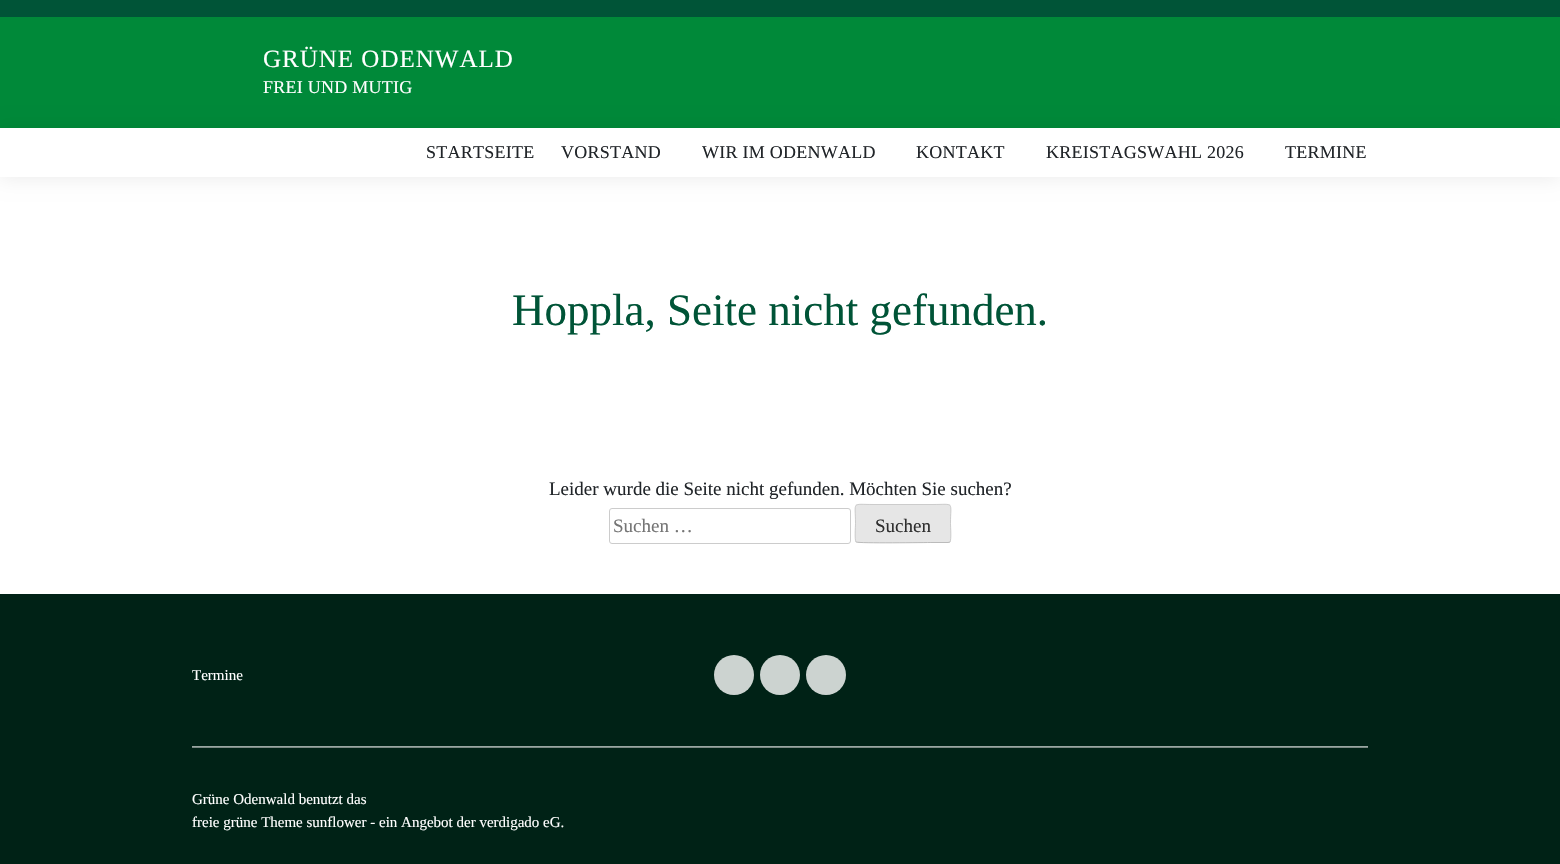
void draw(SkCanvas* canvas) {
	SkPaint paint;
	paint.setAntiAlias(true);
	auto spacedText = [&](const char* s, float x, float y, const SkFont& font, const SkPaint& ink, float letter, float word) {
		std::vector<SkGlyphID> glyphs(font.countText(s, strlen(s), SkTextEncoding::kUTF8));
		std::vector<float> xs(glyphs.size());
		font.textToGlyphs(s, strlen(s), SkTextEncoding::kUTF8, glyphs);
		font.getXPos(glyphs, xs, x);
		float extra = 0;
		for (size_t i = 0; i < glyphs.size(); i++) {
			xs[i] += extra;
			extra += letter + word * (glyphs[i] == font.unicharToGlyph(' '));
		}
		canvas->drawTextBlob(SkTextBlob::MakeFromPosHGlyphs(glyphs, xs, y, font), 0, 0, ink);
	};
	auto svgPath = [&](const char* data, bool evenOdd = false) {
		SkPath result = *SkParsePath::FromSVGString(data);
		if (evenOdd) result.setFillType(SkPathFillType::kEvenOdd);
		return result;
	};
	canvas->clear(0xffffffff);
	paint.setColor(0xff005437);
	canvas->drawRect(SkRect::MakeXYWH(0, 0, 1560, 17), paint);
	paint.setColor(0xff008939);
	canvas->drawRect(SkRect::MakeXYWH(0, 17, 1560, 111), paint);
	SkFont f1(fontMgr->matchFamilyStyle("Liberation Serif", SkFontStyle::Normal()), 25);
	f1.setSubpixel(true);
	paint.setColor(0xffffffff);
	spacedText("GRÜNE ODENWALD", 263, 67, f1, paint, 1, 0);
	SkFont f2(fontMgr->matchFamilyStyle("Liberation Serif", SkFontStyle::Normal()), 18);
	f2.setSubpixel(true);
	spacedText("FREI UND MUTIG", 263, 93, f2, paint, 0.25, 0);
	canvas->save();
	canvas->clipPath(svgPath("M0 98H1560V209H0ZM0 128H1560V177H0Z", true), true);
	paint.setColor(0x14000000);
	paint.setMaskFilter(SkMaskFilter::MakeBlur(kNormal_SkBlurStyle, 10));
	canvas->drawRect(SkRect::MakeXYWH(0, 129, 1560, 49), paint);
	paint.setMaskFilter(nullptr);
	canvas->restore();
	paint.setColor(0xff212529);
	spacedText("STARTSEITE", 426, 158, f2, paint, 0.25, 0);
	spacedText("VORSTAND", 561, 158, f2, paint, 0.25, 0);
	spacedText("WIR IM ODENWALD", 702, 158, f2, paint, 0.25, 0);
	spacedText("KONTAKT", 916, 158, f2, paint, 0.25, 0);
	spacedText("KREISTAGSWAHL 2026", 1046, 158, f2, paint, 0.25, 0);
	spacedText("TERMINE", 1285, 158, f2, paint, 0.25, 0);
	SkFont f3(fontMgr->matchFamilyStyle("Liberation Serif", SkFontStyle::Normal()), 45);
	f3.setSubpixel(true);
	paint.setColor(0xff005437);
	canvas->drawString("Hoppla, Seite nicht gefunden.", 512, 325, f3, paint);
	SkFont f4(fontMgr->matchFamilyStyle("Liberation Serif", SkFontStyle::Normal()), 19);
	f4.setSubpixel(true);
	paint.setColor(0xff212529);
	canvas->drawString("Leider wurde die Seite nicht gefunden. Möchten Sie suchen?", 549, 495, f4, paint);
	paint.setStroke(true);
	paint.setStrokeWidth(1);
	paint.setColor(0xffcccccc);
	canvas->drawRoundRect(SkRect::MakeXYWH(609.5, 508.5, 241, 35), 2.5, 2.5, paint);
	paint.setStroke(false);
	paint.setColor(0xff757575);
	canvas->drawString("Suchen …", 613, 532, f4, paint);
	paint.setColor(0xffe6e6e6);
	canvas->drawRoundRect(SkRect::MakeXYWH(855, 504, 96, 39), 3, 3, paint);
	paint.setStroke(true);
	paint.setColor(0xffbbbbbb);
	canvas->drawPath(svgPath("M950 542L948 542.5H933C925 542.5 858.5 543.5 856.5 542H856"), paint);
	paint.setColor(0xffcccccc);
	canvas->drawPath(svgPath("M856 542C854.5 540 855.5 526.5 855.5 523.5C855.5 501 851 504.5 873 504.5H933C955 504.5 950.5 501 950.5 523.5C950.5 526.5 951.5 540 950 542"), paint);
	paint.setStroke(false);
	paint.setColor(0xff2e2e2e);
	canvas->drawString("Suchen", 875, 532, f4, paint);
	paint.setColor(0xff002216);
	canvas->drawRect(SkRect::MakeXYWH(0, 594, 1560, 270), paint);
	SkFont f5(fontMgr->matchFamilyStyle("Liberation Serif", SkFontStyle::Normal()), 15);
	f5.setSubpixel(true);
	paint.setColor(0xffffffff);
	canvas->drawString("Termine", 192, 680, f5, paint);
	paint.setColor(0xffccd3d0);
	canvas->drawCircle(734, 675, 20, paint);
	canvas->drawCircle(780, 675, 20, paint);
	canvas->drawCircle(826, 675, 20, paint);
	paint.setColor(0xff7a8883);
	canvas->drawRect(SkRect::MakeXYWH(192, 747, 1176, 1), paint);
	paint.setColor(0xff99a7a2);
	canvas->drawRect(SkRect::MakeXYWH(192, 746, 1176, 1), paint);
	paint.setColor(0xffffffff);
	canvas->drawString("Grüne Odenwald benutzt das", 192, 804, f5, paint);
	canvas->drawString("freie grüne Theme sunflower ‐ ein Angebot der verdigado eG.", 192, 827, f5, paint);
}
